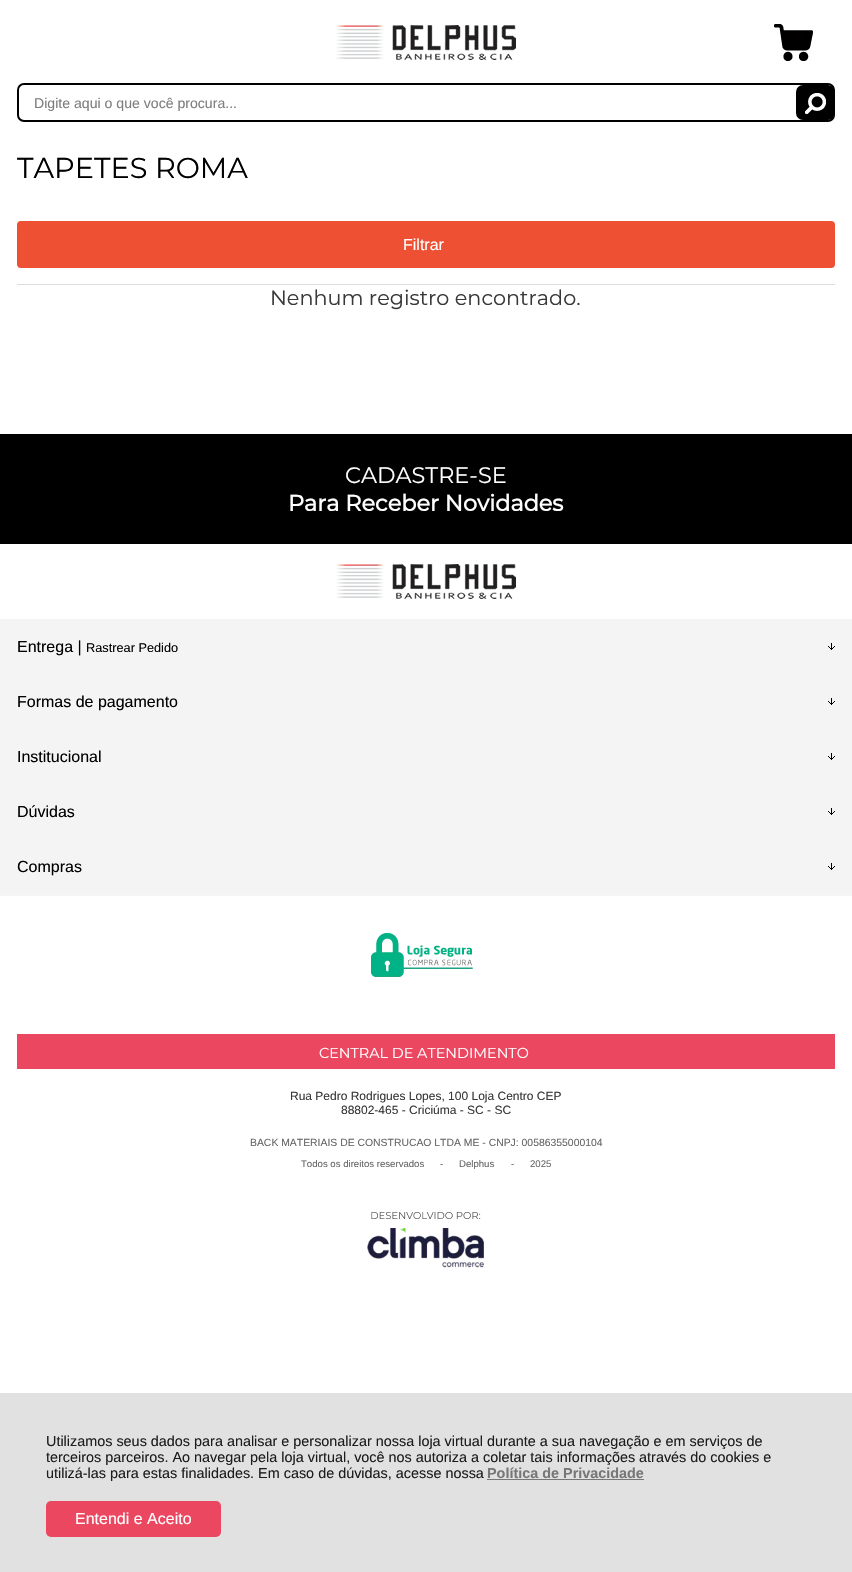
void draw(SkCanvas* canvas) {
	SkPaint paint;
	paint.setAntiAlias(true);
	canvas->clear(0xffffffff);
	canvas->drawImageRect(SkImages::DeferredFromEncodedData(SkData::MakeFromFileName("img1.png")), SkRect::MakeXYWH(336, 25, 180, 35), SkSamplingOptions());
	canvas->drawImageRect(SkImages::DeferredFromEncodedData(SkData::MakeFromFileName("img2.png")), SkRect::MakeXYWH(774, 24, 39, 37), SkSamplingOptions());
	paint.setStroke(true);
	paint.setStrokeWidth(2);
	paint.setColor(0xff000000);
	canvas->drawRoundRect(SkRect::MakeXYWH(18, 84, 816, 37), 6, 6, paint);
	SkFont f1(fontMgr->matchFamilyStyle("Liberation Sans", SkFontStyle::Normal()), 14.1);
	f1.setSubpixel(true);
	paint.setStroke(false);
	paint.setColor(0xff7d7d7d);
	canvas->drawString("Digite aqui o que você procura...", 34, 108, f1, paint);
	paint.setColor(0xff000000);
	canvas->drawRoundRect(SkRect::MakeXYWH(796, 85, 39, 35), 7, 7, paint);
	canvas->drawImageRect(SkImages::DeferredFromEncodedData(SkData::MakeFromFileName("img3.png")), SkRect::MakeXYWH(805, 93, 21, 21), SkSamplingOptions());
	SkFont f2(fontMgr->matchFamilyStyle("Montserrat", SkFontStyle(100, SkFontStyle::kNormal_Width, SkFontStyle::kUpright_Slant)), 28.75);
	f2.setSubpixel(true);
	canvas->drawString("TAPETES ROMA", 17, 178, f2, paint);
	paint.setColor(0xffdddddd);
	canvas->drawRect(SkRect::MakeXYWH(17, 284, 818, 1), paint);
	paint.setColor(0xffed5032);
	canvas->drawRoundRect(SkRect::MakeXYWH(17, 221, 818, 47), 4, 4, paint);
	SkFont f3(fontMgr->matchFamilyStyle("Liberation Sans", SkFontStyle::Normal()), 16);
	f3.setSubpixel(true);
	paint.setColor(0xffffffff);
	canvas->drawString("Filtrar", 403, 250, f3, paint);
	SkFont f4(fontMgr->matchFamilyStyle("Montserrat", SkFontStyle(100, SkFontStyle::kNormal_Width, SkFontStyle::kUpright_Slant)), 20.75);
	f4.setSubpixel(true);
	paint.setColor(0xff393738);
	canvas->drawString("Nenhum registro encontrado.", 270, 305, f4, paint);
	paint.setColor(0xff000000);
	canvas->drawRect(SkRect::MakeXYWH(0, 434, 852, 110), paint);
	SkFont f5(fontMgr->matchFamilyStyle("Montserrat", SkFontStyle(100, SkFontStyle::kNormal_Width, SkFontStyle::kUpright_Slant)), 22.4);
	f5.setSubpixel(true);
	paint.setColor(0xffffffff);
	canvas->drawString("CADASTRE-SE", 345, 483, f5, paint);
	SkFont f6(fontMgr->matchFamilyStyle("Montserrat", SkFontStyle::Bold()), 22.4);
	f6.setSubpixel(true);
	canvas->drawString("Para Receber Novidades", 288, 511, f6, paint);
	canvas->drawImageRect(SkImages::DeferredFromEncodedData(SkData::MakeFromFileName("img4.png")), SkRect::MakeXYWH(336, 564, 180, 35), SkSamplingOptions());
	paint.setColor(0xfff4f4f4);
	canvas->drawRect(SkRect::MakeXYWH(0, 619, 852, 275), paint);
	paint.setColor(0xff000000);
	canvas->drawString("Entrega |", 17, 652, f3, paint);
	SkFont f7(fontMgr->matchFamilyStyle("Liberation Sans", SkFontStyle::Normal()), 12.75);
	f7.setSubpixel(true);
	canvas->drawString("Rastrear Pedido", 86, 652, f7, paint);
	canvas->drawImageRect(SkImages::DeferredFromEncodedData(SkData::MakeFromFileName("img5.png")), SkRect::MakeXYWH(828, 643, 7, 7), SkSamplingOptions());
	canvas->drawString("Formas de pagamento", 17, 707, f3, paint);
	canvas->drawImageRect(SkImages::DeferredFromEncodedData(SkData::MakeFromFileName("img5.png")), SkRect::MakeXYWH(828, 698, 7, 7), SkSamplingOptions());
	canvas->drawString("Institucional", 17, 762, f3, paint);
	canvas->drawImageRect(SkImages::DeferredFromEncodedData(SkData::MakeFromFileName("img5.png")), SkRect::MakeXYWH(828, 753, 7, 7), SkSamplingOptions());
	canvas->drawString("Dúvidas", 17, 817, f3, paint);
	canvas->drawImageRect(SkImages::DeferredFromEncodedData(SkData::MakeFromFileName("img5.png")), SkRect::MakeXYWH(828, 808, 7, 7), SkSamplingOptions());
	canvas->drawString("Compras", 17, 872, f3, paint);
	canvas->drawImageRect(SkImages::DeferredFromEncodedData(SkData::MakeFromFileName("img5.png")), SkRect::MakeXYWH(828, 863, 7, 7), SkSamplingOptions());
	paint.setColor(0xfff5f5f5);
	canvas->drawRect(SkRect::MakeXYWH(0, 894, 852, 2), paint);
	canvas->drawImageRect(SkImages::DeferredFromEncodedData(SkData::MakeFromFileName("img6.png")), SkRect::MakeXYWH(371, 933, 102, 44), SkSamplingOptions());
	paint.setColor(0xffeb4760);
	canvas->drawRect(SkRect::MakeXYWH(17, 1034, 818, 35), paint);
	SkFont f8(fontMgr->matchFamilyStyle("Montserrat", SkFontStyle(100, SkFontStyle::kNormal_Width, SkFontStyle::kUpright_Slant)), 14.4);
	f8.setSubpixel(true);
	paint.setColor(0xffffffff);
	canvas->drawString("CENTRAL DE ATENDIMENTO", 319, 1058, f8, paint);
	SkFont f9(fontMgr->matchFamilyStyle("Liberation Sans", SkFontStyle::Normal()), 12);
	f9.setSubpixel(true);
	paint.setColor(0xff393738);
	canvas->drawString("Rua Pedro Rodrigues Lopes, 100 Loja Centro CEP", 290, 1100, f9, paint);
	canvas->drawString("88802-465 - Criciúma - SC - SC", 341, 1114, f9, paint);
	SkFont f10(fontMgr->matchFamilyStyle("Liberation Sans", SkFontStyle::Normal()), 10.4);
	f10.setSubpixel(true);
	paint.setColor(0xff666666);
	canvas->drawString("BACK MATERIAIS DE CONSTRUCAO LTDA ME - CNPJ: 00586355000104", 250, 1146, f10, paint);
	SkFont f11(fontMgr->matchFamilyStyle("Liberation Sans", SkFontStyle::Normal()), 9.6);
	f11.setSubpixel(true);
	canvas->drawString("Todos os direitos reservados", 301, 1167, f11, paint);
	canvas->drawString("-", 440, 1167, f11, paint);
	canvas->drawString("Delphus", 459, 1167, f11, paint);
	canvas->drawString("-", 511, 1167, f11, paint);
	canvas->drawString("2025", 530, 1167, f11, paint);
	canvas->drawImageRect(SkImages::DeferredFromEncodedData(SkData::MakeFromFileName("img7.png")), SkRect::MakeXYWH(367, 1212, 117, 56), SkSamplingOptions());
	paint.setColor(0xffe0e1e0);
	canvas->drawRect(SkRect::MakeXYWH(0, 1393, 852, 179), paint);
	SkFont f12(fontMgr->matchFamilyStyle("Liberation Sans", SkFontStyle::Normal()), 14.4);
	f12.setSubpixel(true);
	paint.setColor(0xff1d1d1d);
	canvas->drawString("Utilizamos seus dados para analisar e personalizar nossa loja virtual durante a sua navegação e em serviços de", 46, 1446, f12, paint);
	canvas->drawString("terceiros parceiros. Ao navegar pela loja virtual, você nos autoriza a coletar tais informações através do cookies e", 46, 1462, f12, paint);
	canvas->drawString("utilizá-las para estas finalidades. Em caso de dúvidas, acesse nossa", 46, 1478, f12, paint);
	SkFont f13(fontMgr->matchFamilyStyle("Liberation Sans", SkFontStyle::Bold()), 14.4);
	f13.setSubpixel(true);
	paint.setColor(0xff777777);
	canvas->drawString("Política de Privacidade", 487, 1478, f13, paint);
	canvas->drawRect(SkRect::MakeXYWH(487, 1479, 157, 1), paint);
	paint.setColor(0xffeb4760);
	canvas->drawRoundRect(SkRect::MakeXYWH(46, 1501, 175, 36), 5, 5, paint);
	paint.setColor(0xffffffff);
	canvas->drawString("Entendi e Aceito", 75, 1524, f3, paint);
}
